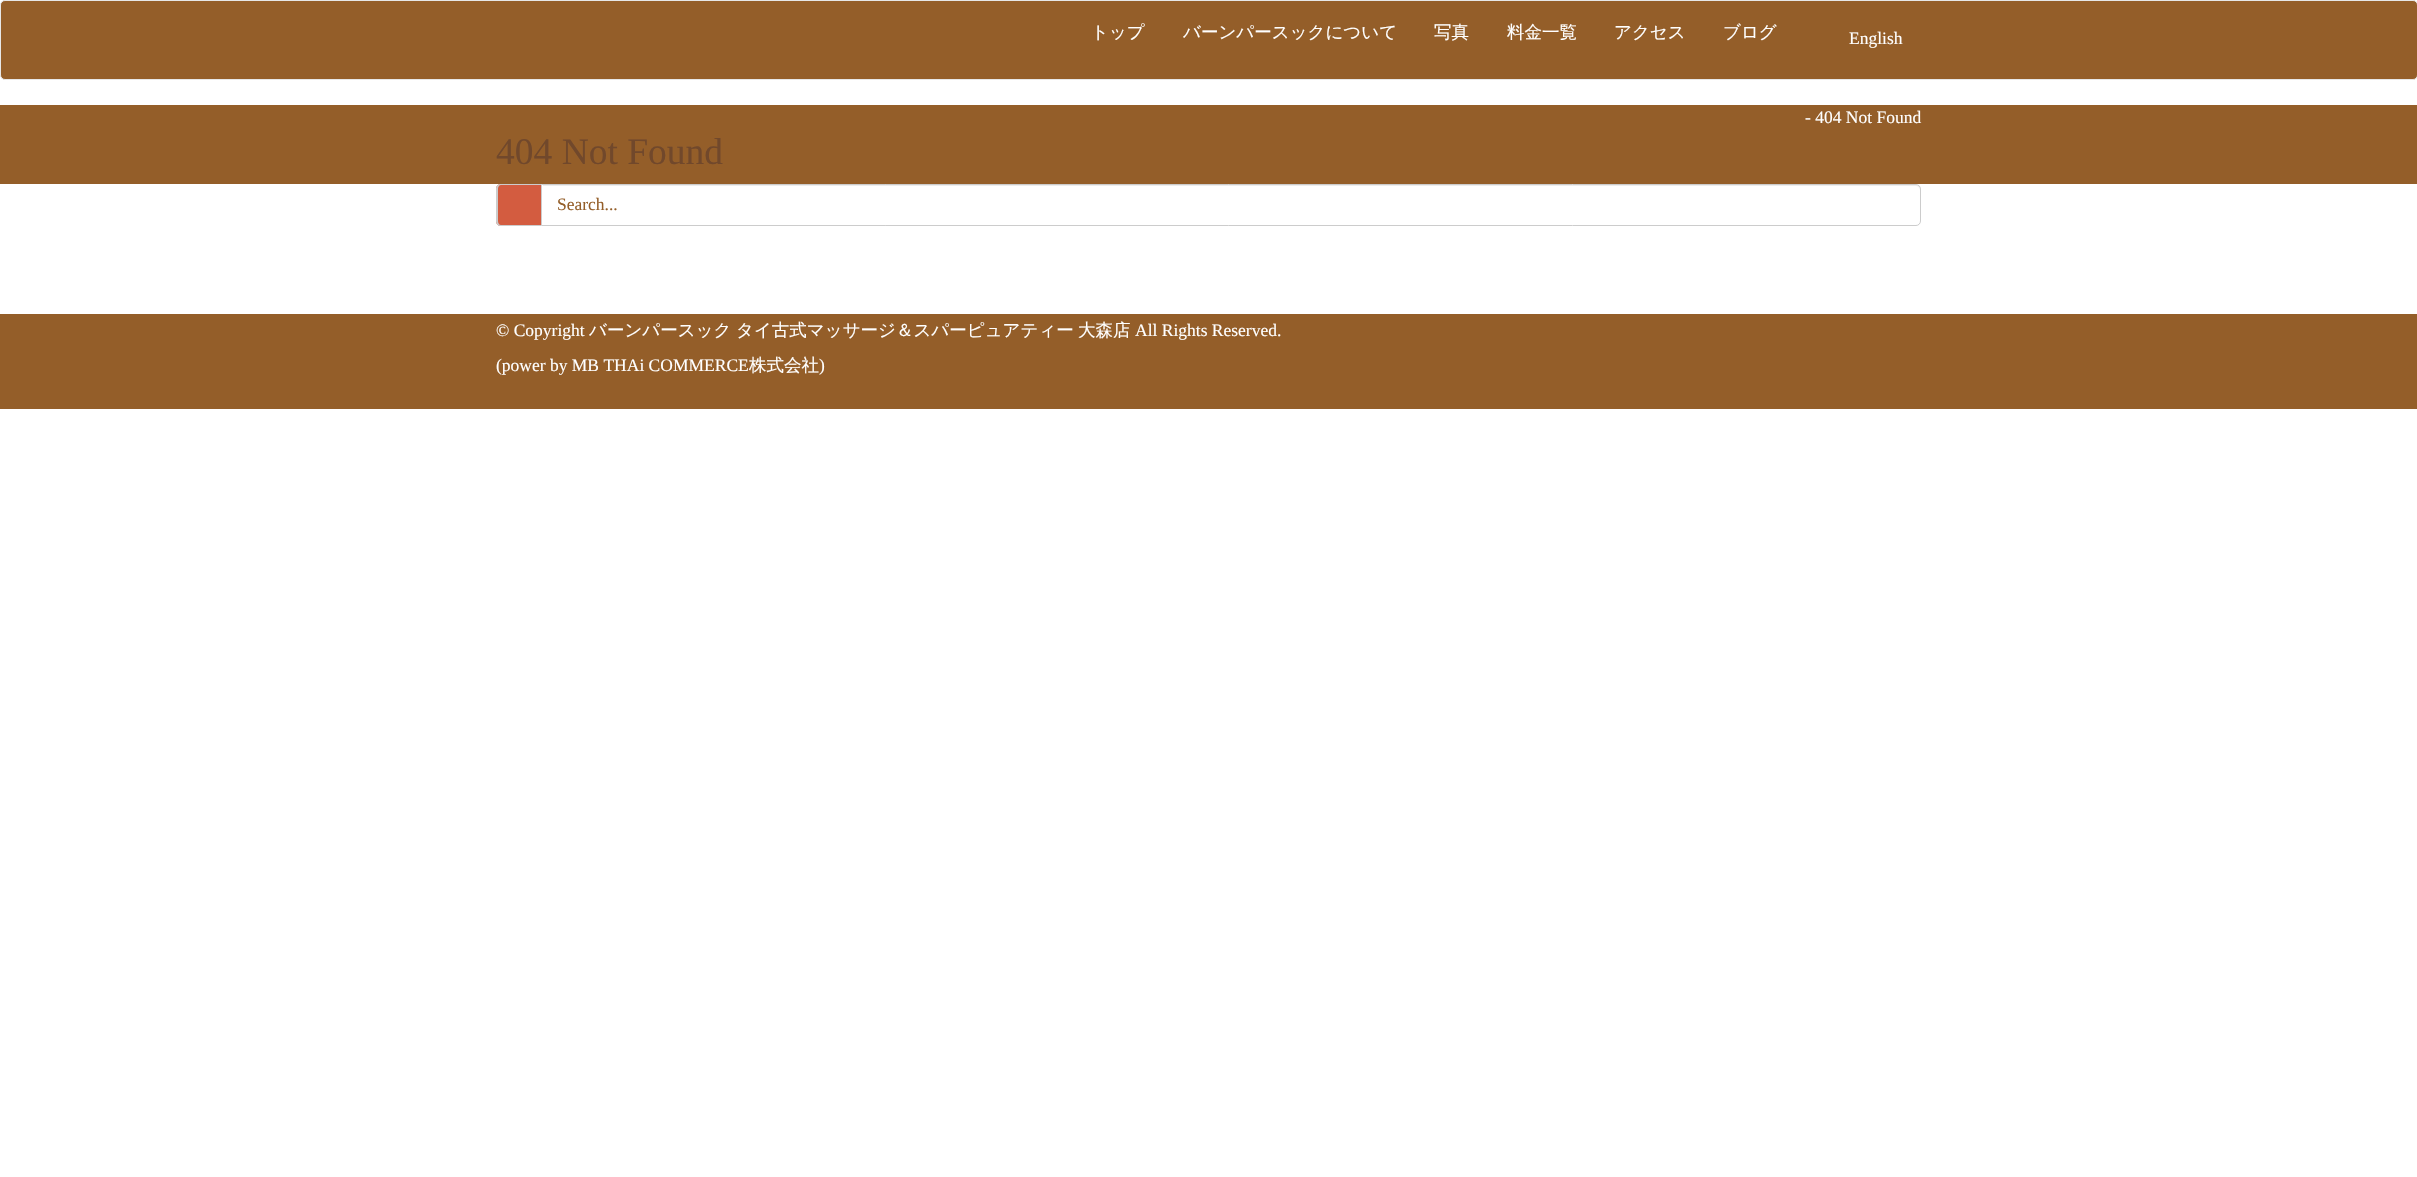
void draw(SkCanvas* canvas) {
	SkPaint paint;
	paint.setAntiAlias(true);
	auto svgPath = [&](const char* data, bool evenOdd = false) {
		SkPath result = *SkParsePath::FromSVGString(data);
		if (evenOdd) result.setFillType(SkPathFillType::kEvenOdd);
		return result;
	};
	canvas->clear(0xffffffff);
	paint.setColor(0xff945e29);
	canvas->drawRoundRect(SkRect::MakeXYWH(0.5, 0.5, 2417, 79), 4.5, 4.5, paint);
	paint.setStroke(true);
	paint.setStrokeWidth(1);
	paint.setColor(0xffe7e7e7);
	canvas->drawRoundRect(SkRect::MakeXYWH(0.5, 0.5, 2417, 79), 4.5, 4.5, paint);
	SkFont f1(fontMgr->matchFamilyStyle("WenQuanYi Zen Hei", SkFontStyle(500, SkFontStyle::kNormal_Width, SkFontStyle::kUpright_Slant)), 17.5);
	f1.setSubpixel(true);
	paint.setStroke(false);
	paint.setColor(0xffffffff);
	canvas->drawString("トップ", 1091, 38, f1, paint);
	canvas->drawString("バーンパースックについて", 1183, 38, f1, paint);
	canvas->drawString("写真", 1434, 38, f1, paint);
	canvas->drawString("料金一覧", 1507, 38, f1, paint);
	canvas->drawString("アクセス", 1614, 38, f1, paint);
	canvas->drawString("ブログ", 1723, 38, f1, paint);
	SkFont f2(fontMgr->matchFamilyStyle("Liberation Serif", SkFontStyle::Normal()), 17.5);
	f2.setSubpixel(true);
	canvas->drawString("English", 1849, 44, f2, paint);
	paint.setColor(0xff945e29);
	canvas->drawRect(SkRect::MakeXYWH(0, 105, 2417, 79), paint);
	paint.setColor(0xffffffff);
	canvas->drawString("- 404 Not Found", 1805, 123, f2, paint);
	SkFont f3(fontMgr->matchFamilyStyle("Liberation Serif", SkFontStyle::Normal()), 37.5);
	f3.setSubpixel(true);
	paint.setColor(0xff71482b);
	canvas->drawString("404 Not Found", 496, 164, f3, paint);
	paint.setColor(0xffd35c40);
	canvas->drawPath(svgPath("M501 184H541V226H501C498 226 496 224 496 221V189C496 186 498 184 501 184Z"), paint);
	paint.setColor(0xffcccccc);
	canvas->drawPath(svgPath("M501 184H541V226H501C498 226 496 224 496 221V189C496 186 498 184 501 184ZM501 185H541V225H501C499 225 498 223 498 221V189C498 187 499 185 501 185Z", true), paint);
	paint.setColor(0xffececec);
	canvas->drawPath(svgPath("M543 185V186H1916C1918 186 1920 188 1920 190C1920 187 1919 185 1916 185Z"), paint);
	paint.setStroke(true);
	paint.setColor(0xffcccccc);
	canvas->drawPath(svgPath("M541.5 184.5H1916C1918.5 184.5 1920.5 186.5 1920.5 189V221C1920.5 223.5 1918.5 225.5 1916 225.5H541.5Z"), paint);
	paint.setStroke(false);
	paint.setColor(0xff945e29);
	canvas->drawString("Search...", 557, 210, f2, paint);
	canvas->drawRect(SkRect::MakeXYWH(0, 314, 2417, 95), paint);
	paint.setColor(0xffffffff);
	canvas->drawString("© Copyright", 496, 336, f2, paint);
	canvas->drawString("バーンパースック", 589, 336, f1, paint);
	canvas->drawString("タイ古式マッサージ＆スパーピュアティー", 736, 336, f1, paint);
	canvas->drawString("大森店", 1078, 336, f1, paint);
	canvas->drawString("All Rights Reserved.", 1135, 336, f2, paint);
	canvas->drawString("(power by MB THAi COMMERCE", 496, 371, f2, paint);
	canvas->drawString("株式会社", 749, 371, f1, paint);
	canvas->drawString(")", 819, 371, f2, paint);
}
